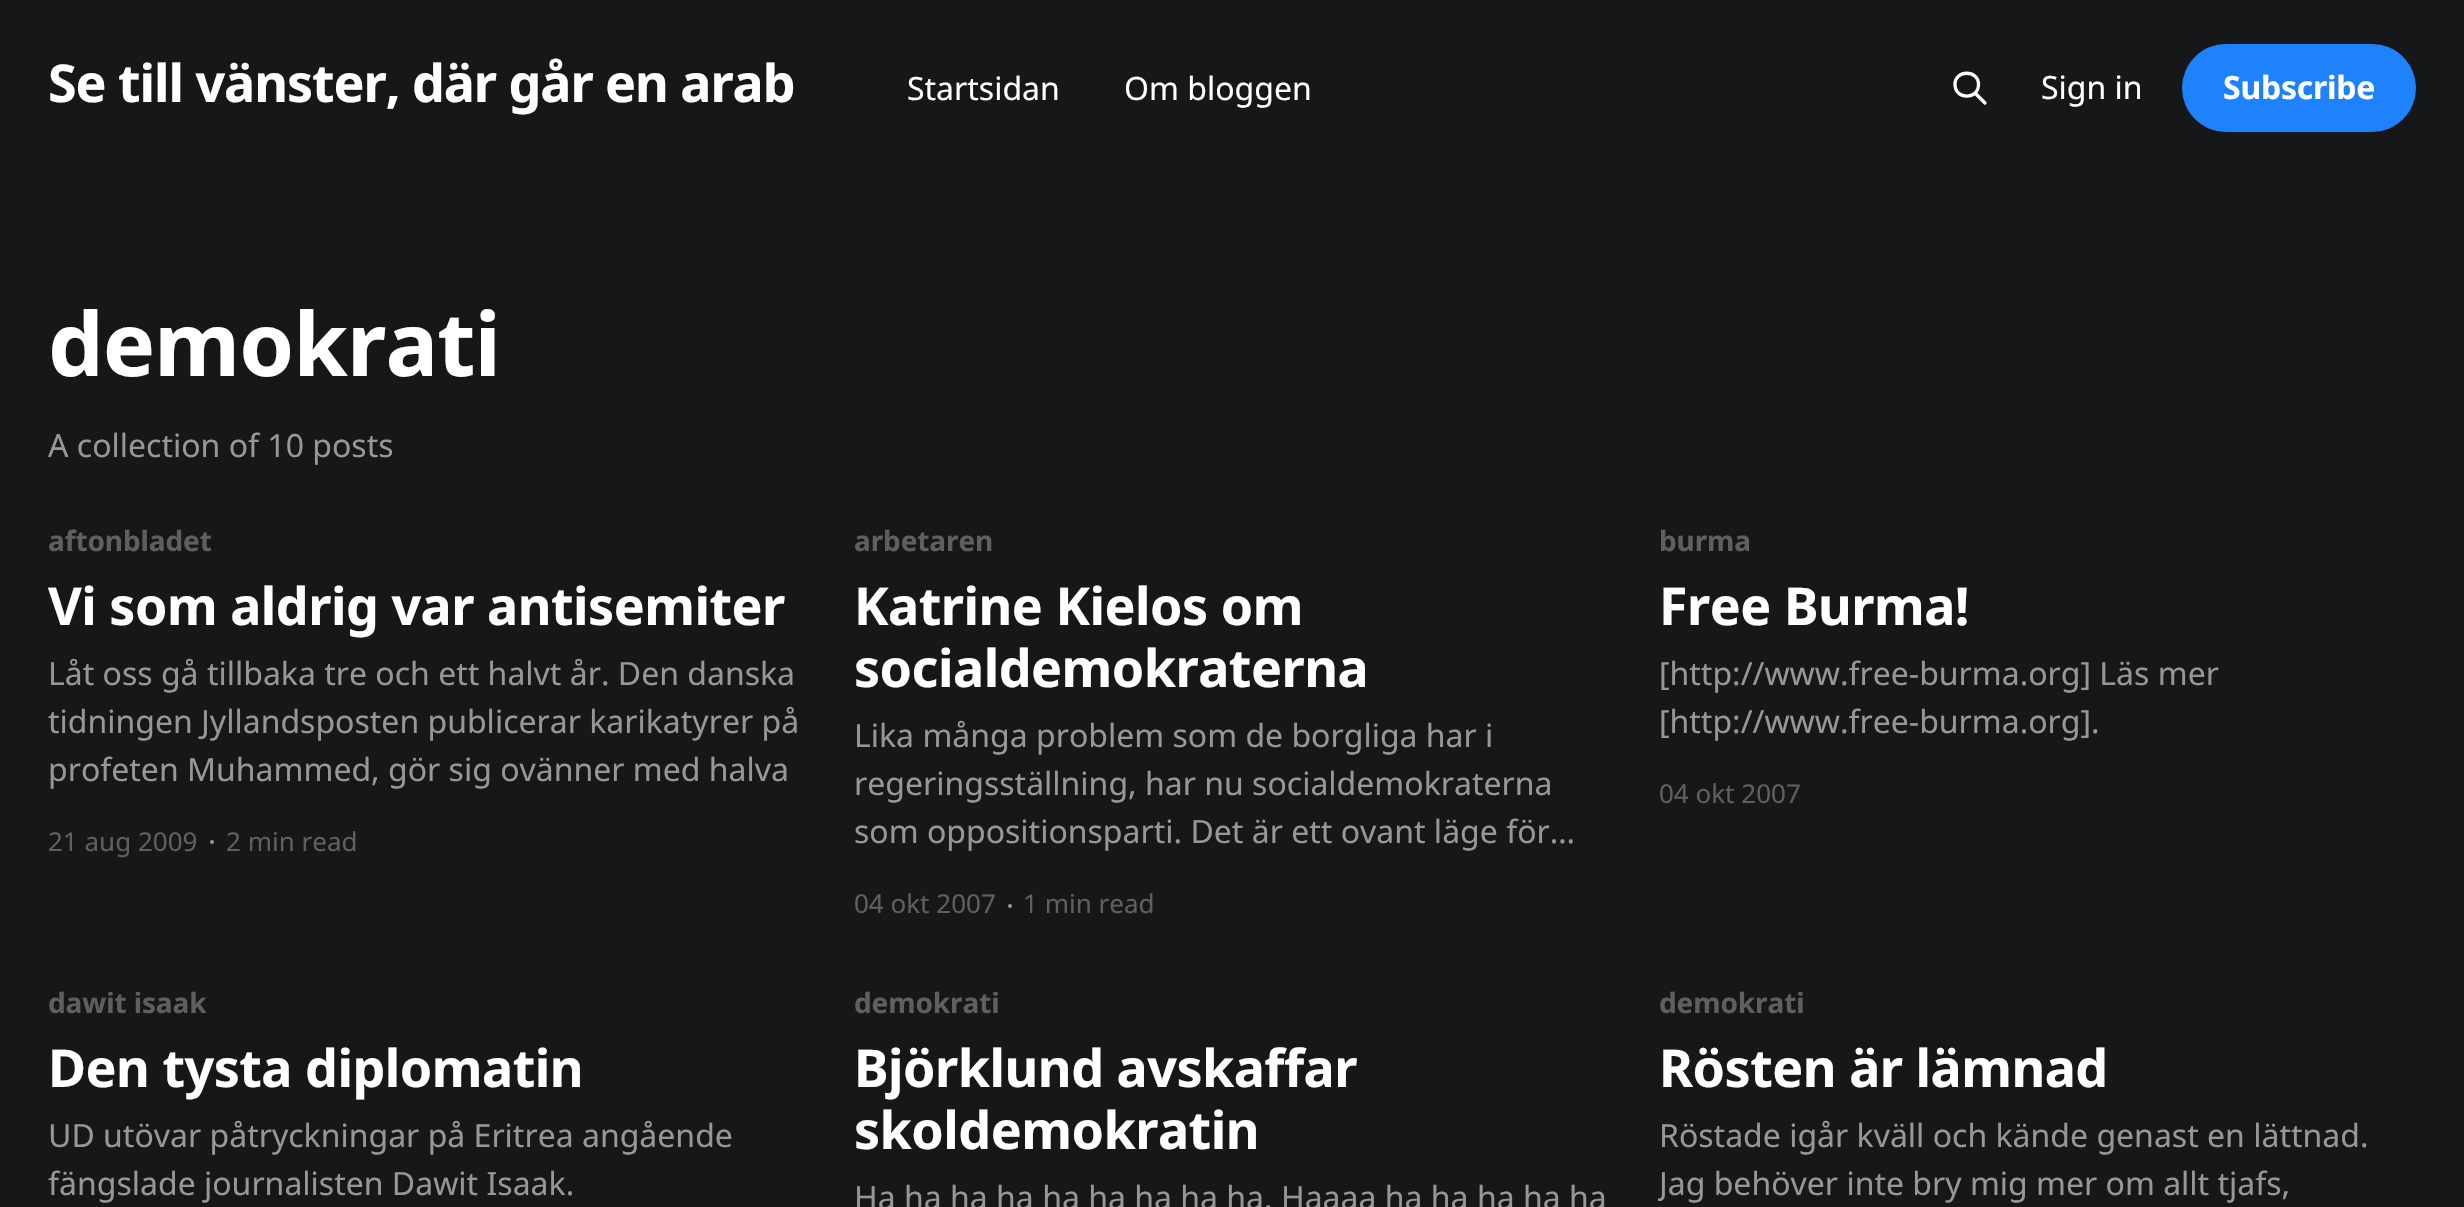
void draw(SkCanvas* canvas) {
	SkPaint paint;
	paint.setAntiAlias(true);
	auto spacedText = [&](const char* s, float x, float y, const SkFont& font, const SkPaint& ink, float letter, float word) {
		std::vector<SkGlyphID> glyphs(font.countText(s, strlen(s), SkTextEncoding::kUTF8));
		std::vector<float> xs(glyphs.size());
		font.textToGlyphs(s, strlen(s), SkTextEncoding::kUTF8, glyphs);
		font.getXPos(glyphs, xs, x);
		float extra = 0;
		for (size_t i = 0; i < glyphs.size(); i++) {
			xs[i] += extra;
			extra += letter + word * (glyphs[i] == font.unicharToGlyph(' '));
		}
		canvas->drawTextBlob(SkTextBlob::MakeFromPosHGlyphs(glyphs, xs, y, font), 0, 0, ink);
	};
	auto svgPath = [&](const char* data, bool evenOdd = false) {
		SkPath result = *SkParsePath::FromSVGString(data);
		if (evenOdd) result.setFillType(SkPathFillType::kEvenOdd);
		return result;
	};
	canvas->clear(0xff151719);
	SkFont f1(fontMgr->matchFamilyStyle("Noto Sans", SkFontStyle::Bold()), 52);
	f1.setSubpixel(true);
	paint.setColor(0xffffffff);
	spacedText("Se till vänster, där går en arab", 48, 102, f1, paint, -1.05, 0);
	SkFont f2(fontMgr->matchFamilyStyle("Noto Sans", SkFontStyle::Normal()), 32);
	f2.setSubpixel(true);
	canvas->drawString("Startsidan", 907, 100, f2, paint);
	canvas->drawString("Om bloggen", 1124, 100, f2, paint);
	paint.setStroke(true);
	paint.setStrokeWidth(3.3);
	paint.setStrokeCap(SkPaint::kRound_Cap);
	paint.setStrokeJoin(SkPaint::kRound_Join);
	canvas->drawPath(svgPath("M1985 103L1975 93M1978.5 84.5C1978.5 100 1955 100 1955 84.5C1955 69.5 1978.5 69.5 1978.5 84.5Z"), paint);
	paint.setStroke(false);
	canvas->drawString("Sign in", 2041, 99, f2, paint);
	paint.setColor(0xff1d82fc);
	canvas->drawRoundRect(SkRect::MakeXYWH(2182, 44, 234, 88), 44, 44, paint);
	SkFont f3(fontMgr->matchFamilyStyle("Noto Sans", SkFontStyle::Bold()), 32);
	f3.setSubpixel(true);
	paint.setColor(0xffffffff);
	spacedText("Subscribe", 2223, 99, f3, paint, -0.25, 0);
	SkFont f4(fontMgr->matchFamilyStyle("Noto Sans", SkFontStyle::Bold()), 88);
	f4.setSubpixel(true);
	spacedText("demokrati", 48, 376, f4, paint, -0.9, 0);
	paint.setColor(0xff979797);
	canvas->drawString("A collection of 10 posts", 48, 457, f2, paint);
	SkFont f5(fontMgr->matchFamilyStyle("Noto Sans", SkFontStyle::Bold()), 28);
	f5.setSubpixel(true);
	paint.setColor(0xff5f5f5f);
	spacedText("aftonbladet", 48, 551, f5, paint, -0.1, 0);
	paint.setColor(0xffffffff);
	spacedText("Vi som aldrig var antisemiter", 48, 625, f1, paint, -0.5, 0);
	paint.setColor(0xff979797);
	canvas->drawString("Låt oss gå tillbaka tre och ett halvt år. Den danska", 48, 685, f2, paint);
	canvas->drawString("tidningen Jyllandsposten publicerar karikatyrer på", 48, 733, f2, paint);
	canvas->drawString("profeten Muhammed, gör sig ovänner med halva", 48, 781, f2, paint);
	SkFont f6(fontMgr->matchFamilyStyle("Noto Sans", SkFontStyle::Normal()), 26);
	f6.setSubpixel(true);
	paint.setColor(0xff5f5f5f);
	canvas->drawString("21 aug 2009", 48, 851, f6, paint);
	paint.setColor(0xff979797);
	canvas->drawCircle(212, 842, 2, paint);
	paint.setColor(0xff5f5f5f);
	canvas->drawString("2 min read", 226, 851, f6, paint);
	spacedText("arbetaren", 854, 551, f5, paint, -0.1, 0);
	paint.setColor(0xffffffff);
	spacedText("Katrine Kielos om", 854, 625, f1, paint, -0.5, 0);
	spacedText("socialdemokraterna", 854, 687, f1, paint, -0.5, 0);
	paint.setColor(0xff979797);
	canvas->drawString("Lika många problem som de borgliga har i", 854, 747, f2, paint);
	canvas->drawString("regeringsställning, har nu socialdemokraterna", 854, 795, f2, paint);
	canvas->drawString("som oppositionsparti. Det är ett ovant läge för…", 854, 843, f2, paint);
	paint.setColor(0xff5f5f5f);
	canvas->drawString("04 okt 2007", 854, 913, f6, paint);
	paint.setColor(0xff979797);
	canvas->drawCircle(1010, 906, 2, paint);
	paint.setColor(0xff5f5f5f);
	canvas->drawString("1 min read", 1023, 913, f6, paint);
	spacedText("burma", 1659, 551, f5, paint, -0.1, 0);
	paint.setColor(0xffffffff);
	spacedText("Free Burma!", 1659, 625, f1, paint, -0.5, 0);
	paint.setColor(0xff979797);
	canvas->drawString("[http://www.free-burma.org] Läs mer", 1659, 685, f2, paint);
	canvas->drawString("[http://www.free-burma.org].", 1659, 733, f2, paint);
	paint.setColor(0xff5f5f5f);
	canvas->drawString("04 okt 2007", 1659, 803, f6, paint);
	spacedText("dawit isaak", 48, 1013, f5, paint, -0.1, 0);
	paint.setColor(0xffffffff);
	spacedText("Den tysta diplomatin", 48, 1087, f1, paint, -0.5, 0);
	paint.setColor(0xff979797);
	canvas->drawString("UD utövar påtryckningar på Eritrea angående", 48, 1147, f2, paint);
	canvas->drawString("fängslade journalisten Dawit Isaak.", 48, 1195, f2, paint);
	paint.setColor(0xff5f5f5f);
	spacedText("demokrati", 854, 1013, f5, paint, -0.1, 0);
	paint.setColor(0xffffffff);
	spacedText("Björklund avskaffar", 854, 1087, f1, paint, -0.5, 0);
	spacedText("skoldemokratin", 854, 1149, f1, paint, -0.5, 0);
	paint.setColor(0xff979797);
	canvas->drawString("Ha ha ha ha ha ha ha ha ha. Haaaa ha ha ha ha ha", 854, 1209, f2, paint);
	paint.setColor(0xff5f5f5f);
	spacedText("demokrati", 1659, 1013, f5, paint, -0.1, 0);
	paint.setColor(0xffffffff);
	spacedText("Rösten är lämnad", 1659, 1087, f1, paint, -0.5, 0);
	paint.setColor(0xff979797);
	canvas->drawString("Röstade igår kväll och kände genast en lättnad.", 1659, 1147, f2, paint);
	canvas->save();
	canvas->clipRect(SkRect::MakeXYWH(1658, 1110, 758, 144));
	canvas->drawString("Jag behöver inte bry mig mer om allt tjafs,", 1659, 1195, f2, paint);
	canvas->restore();
}
